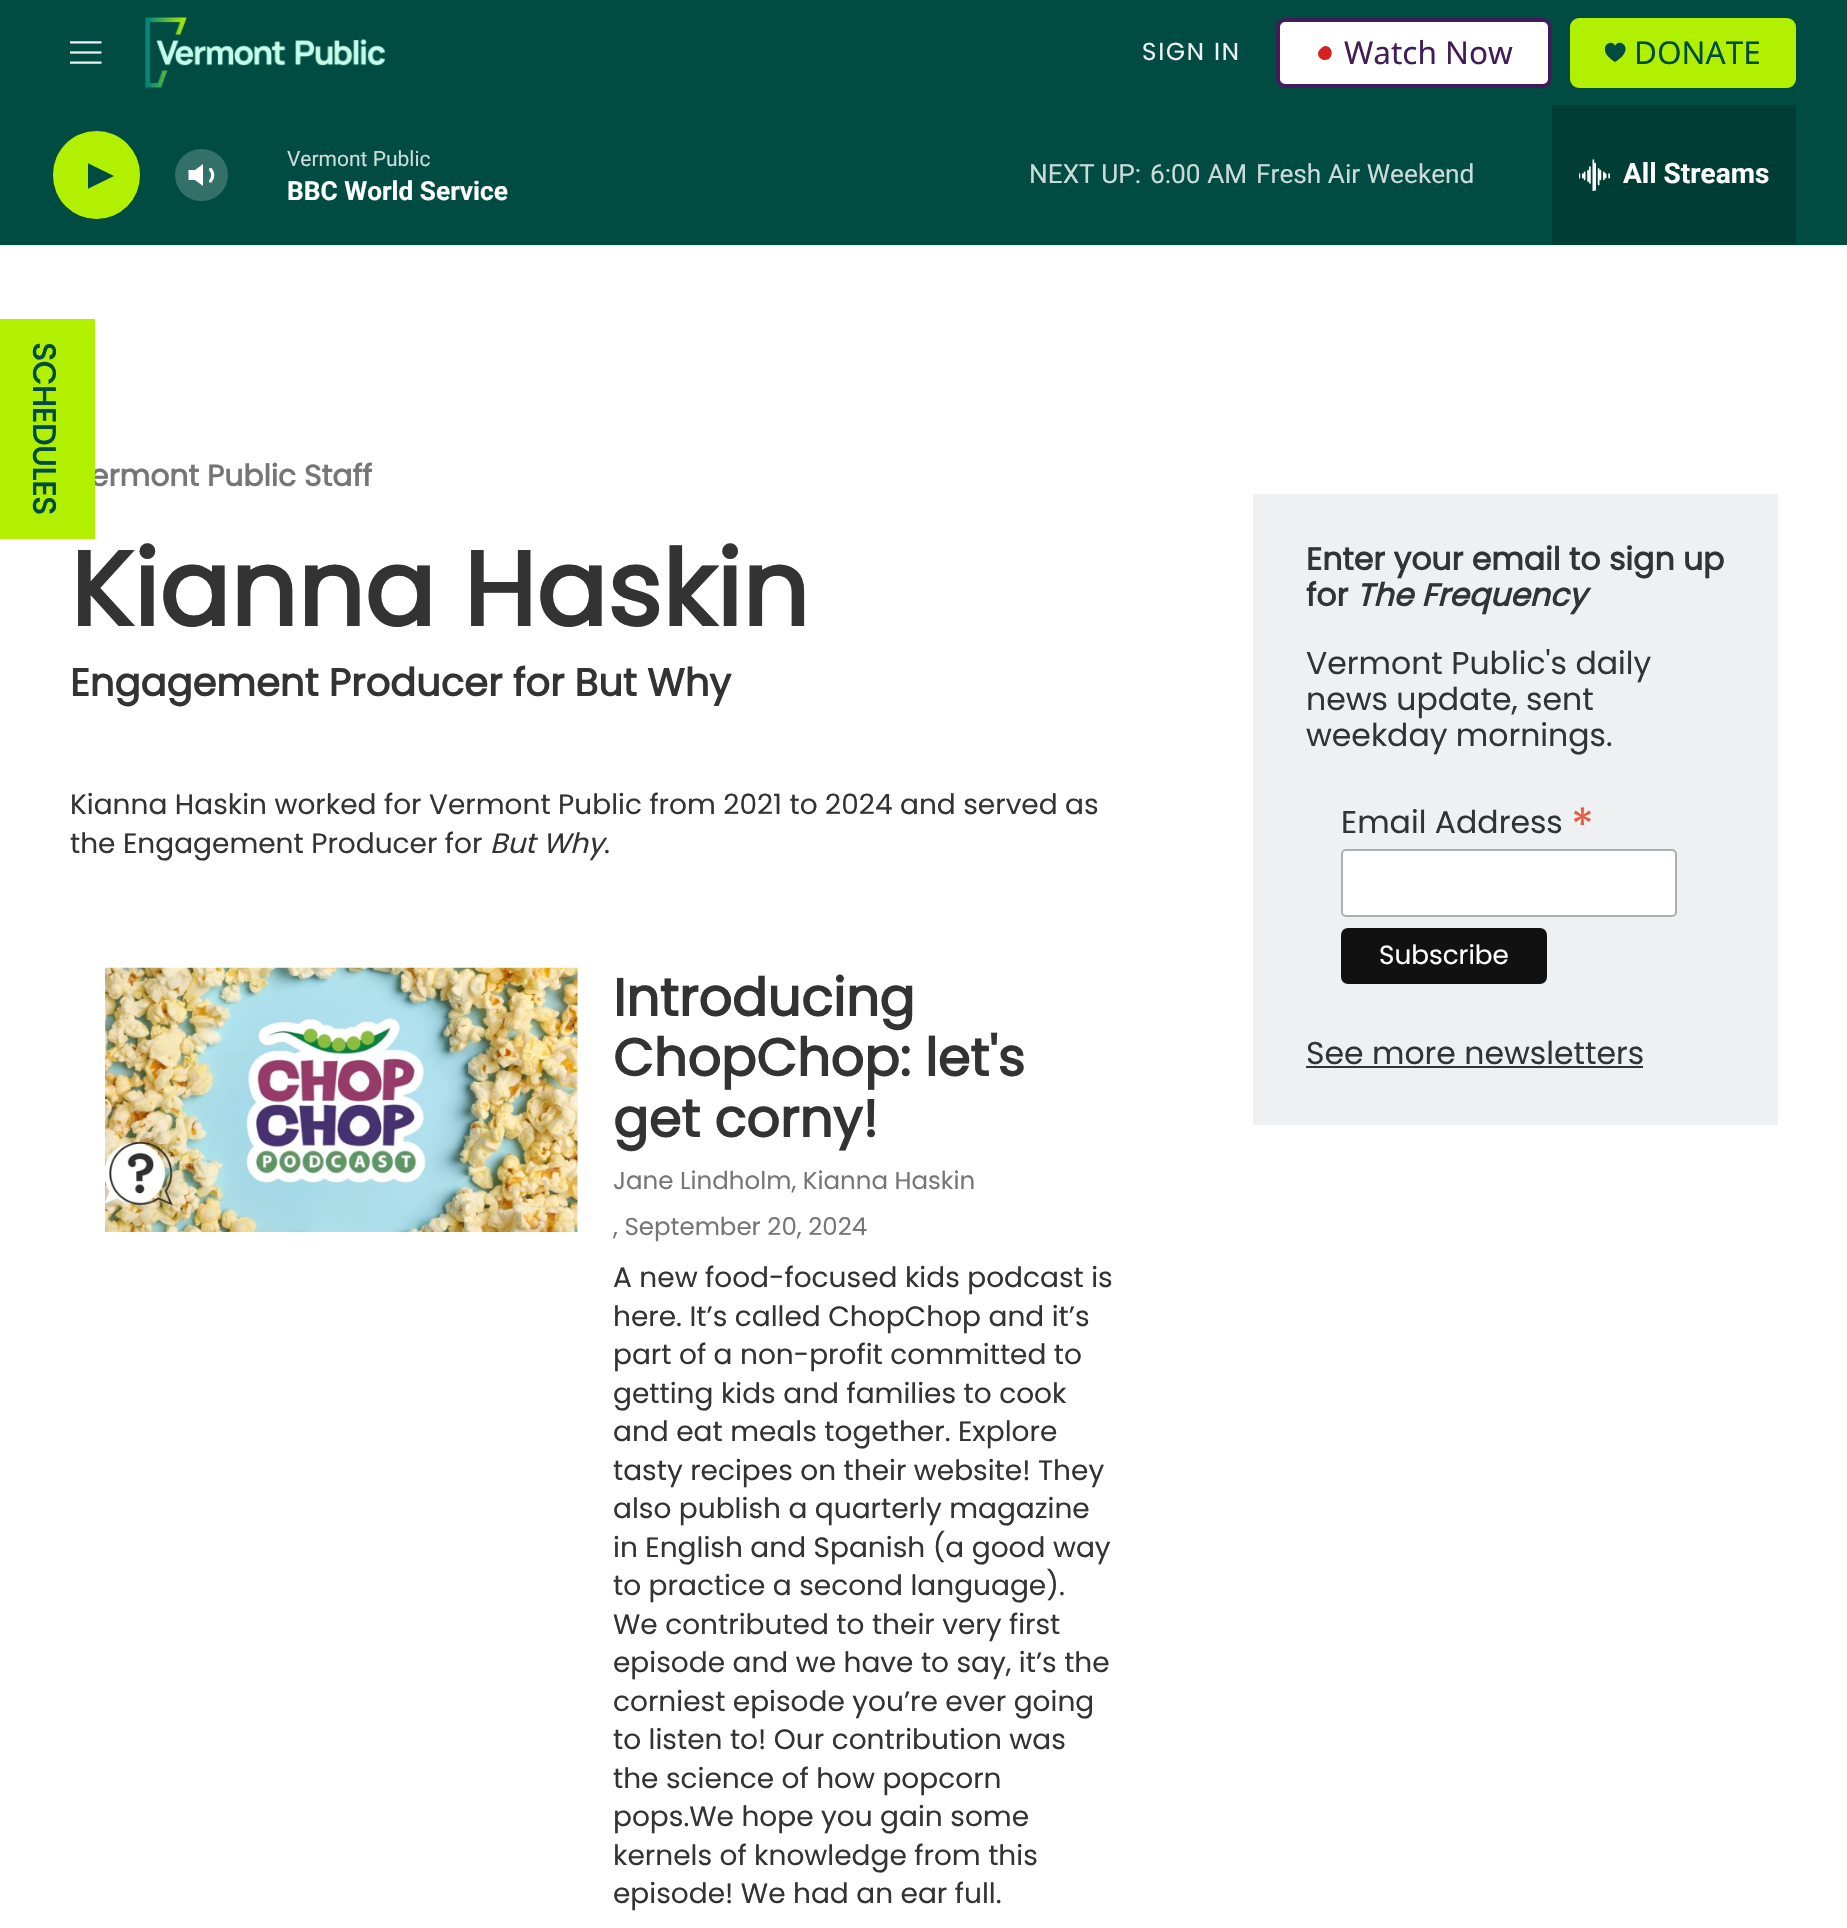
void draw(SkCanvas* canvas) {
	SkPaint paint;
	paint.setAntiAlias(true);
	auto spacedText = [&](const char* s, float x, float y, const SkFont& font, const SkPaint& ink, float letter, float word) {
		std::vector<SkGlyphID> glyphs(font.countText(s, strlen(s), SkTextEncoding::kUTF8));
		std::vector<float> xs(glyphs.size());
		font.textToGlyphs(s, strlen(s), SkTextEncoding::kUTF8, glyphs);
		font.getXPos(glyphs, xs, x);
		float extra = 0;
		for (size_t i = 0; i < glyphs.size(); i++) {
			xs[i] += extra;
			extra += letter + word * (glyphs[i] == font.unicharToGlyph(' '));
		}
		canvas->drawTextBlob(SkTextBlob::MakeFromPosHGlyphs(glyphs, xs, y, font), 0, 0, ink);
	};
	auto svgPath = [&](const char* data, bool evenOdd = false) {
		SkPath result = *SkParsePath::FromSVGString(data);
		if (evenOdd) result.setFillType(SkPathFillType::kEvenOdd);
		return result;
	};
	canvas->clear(0xffffffff);
	paint.setColor(0xff004c42);
	canvas->drawRect(SkRect::MakeXYWH(0, 0, 1847, 245), paint);
	paint.setColor(0xfff5f5f5);
	canvas->drawRect(SkRect::MakeXYWH(0, 245, 1847, 2), paint);
	canvas->drawImageRect(SkImages::DeferredFromEncodedData(SkData::MakeFromFileName("img1.png")), SkRect::MakeXYWH(70, 41, 32, 23), SkSamplingOptions());
	canvas->drawImageRect(SkImages::DeferredFromEncodedData(SkData::MakeFromFileName("img2.png")), SkRect::MakeXYWH(145, 17, 240, 71), SkSamplingOptions());
	SkFont f1(fontMgr->matchFamilyStyle("Poppins", SkFontStyle::Normal()), 24.5);
	f1.setSubpixel(true);
	paint.setColor(0xffeff0f1);
	spacedText("SIGN IN", 1142, 60, f1, paint, 1.75, 0);
	paint.setColor(0xffffffff);
	canvas->drawRoundRect(SkRect::MakeXYWH(1278, 20, 272, 66), 7, 7, paint);
	paint.setStroke(true);
	paint.setStrokeWidth(4);
	paint.setColor(0xff411c58);
	canvas->drawRoundRect(SkRect::MakeXYWH(1278, 20, 272, 66), 7, 7, paint);
	paint.setStroke(false);
	paint.setColor(0xffd62021);
	canvas->drawPath(svgPath("M1325 46C1334 46 1334 60 1325 60C1323 60 1321.5 59.5 1320 58C1316.5 54.5 1318 50.5 1321.5 48C1322.5 47 1324 46 1325 46Z"), paint);
	SkFont f2(fontMgr->matchFamilyStyle("Noto Sans", SkFontStyle::Normal()), 31.5);
	f2.setSubpixel(true);
	paint.setColor(0xff411c58);
	canvas->drawString("Watch Now", 1344, 64, f2, paint);
	paint.setColor(0xffb1f000);
	canvas->drawRoundRect(SkRect::MakeXYWH(1570, 18, 226, 70), 9, 9, paint);
	canvas->save();
	canvas->clipRect(SkRect::MakeXYWH(1605, 42, 21, 21));
	paint.setColor(0xff004c42);
	canvas->drawPath(svgPath("M1615 46C1612 37 1593.5 48.5 1615 62C1637 48.5 1618.5 37 1615 46Z"), paint);
	canvas->restore();
	canvas->drawString("DONATE", 1634, 64, f2, paint);
	paint.setColor(0xffb1f000);
	canvas->drawRoundRect(SkRect::MakeXYWH(53, 131, 87, 88), 43.5, 43.5, paint);
	canvas->save();
	canvas->clipRect(SkRect::MakeXYWH(88, 159, 26, 34));
	paint.setColor(0xff004c42);
	canvas->drawPath(svgPath("M87.5 163L114 176L87.5 189Z"), paint);
	canvas->restore();
	paint.setColor(0xffffffff);
	canvas->drawPath(svgPath("M203 164L195 170H188.5V180H195L203 186Z"), paint);
	paint.setStroke(true);
	paint.setStrokeWidth(3.2);
	paint.setStrokeCap(SkPaint::kRound_Cap);
	paint.setStrokeJoin(SkPaint::kRound_Join);
	canvas->drawPath(svgPath("M210.5 169.5C213.5 172.5 213.5 177.5 210.5 181"), paint);
	paint.setStroke(false);
	paint.setColor(0x33ffffff);
	canvas->drawRoundRect(SkRect::MakeXYWH(175, 149, 53, 52), 26, 26, paint);
	SkFont f3(fontMgr->matchFamilyStyle("Roboto", SkFontStyle::Normal()), 21);
	f3.setSubpixel(true);
	paint.setColor(0xffccdbd9);
	canvas->drawString("Vermont Public", 287, 166, f3, paint);
	SkFont f4(fontMgr->matchFamilyStyle("Roboto", SkFontStyle::Bold()), 26.25);
	f4.setSubpixel(true);
	paint.setColor(0xffffffff);
	canvas->drawString("BBC World Service", 287, 200, f4, paint);
	SkFont f5(fontMgr->matchFamilyStyle("Roboto", SkFontStyle::Normal()), 26.25);
	f5.setSubpixel(true);
	paint.setColor(0xffccdbd9);
	canvas->drawString("NEXT UP:", 1029, 183, f5, paint);
	canvas->drawString("6:00 AM", 1150, 183, f5, paint);
	canvas->drawString("Fresh Air Weekend", 1256, 183, f5, paint);
	paint.setColor(0xff003d35);
	canvas->drawRect(SkRect::MakeXYWH(1552, 105, 244, 140), paint);
	canvas->drawImageRect(SkImages::DeferredFromEncodedData(SkData::MakeFromFileName("img3.png")), SkRect::MakeXYWH(1579, 159, 31, 32), SkSamplingOptions());
	SkFont f6(fontMgr->matchFamilyStyle("Roboto", SkFontStyle::Bold()), 28);
	f6.setSubpixel(true);
	paint.setColor(0xffffffff);
	canvas->drawString("All Streams", 1623, 183, f6, paint);
	SkFont f7(fontMgr->matchFamilyStyle("Poppins", SkFontStyle::Bold()), 29.75);
	f7.setSubpixel(true);
	paint.setColor(0xff767676);
	canvas->drawString("ermont Public Staff", 90, 486, f7, paint);
	paint.setColor(0xffb1f000);
	canvas->drawRect(SkRect::MakeXYWH(0, 319, 95, 220), paint);
	SkFont f8(fontMgr->matchFamilyStyle("Poppins", SkFontStyle::Bold()), 31.5);
	f8.setSubpixel(true);
	paint.setColor(0xff004c42);
	canvas->save();
	canvas->rotate(90, 33, 342);
	canvas->drawString("SCHEDULES", 33, 342, f8, paint);
	canvas->restore();
	SkFont f9(fontMgr->matchFamilyStyle("Poppins", SkFontStyle::Bold()), 105);
	f9.setSubpixel(true);
	paint.setColor(0xff333333);
	canvas->drawString("Kianna Haskin", 70, 626, f9, paint);
	SkFont f10(fontMgr->matchFamilyStyle("Poppins", SkFontStyle::Bold()), 38.5);
	f10.setSubpixel(true);
	canvas->drawString("Engagement Producer for But Why", 70, 696, f10, paint);
	SkFont f11(fontMgr->matchFamilyStyle("Poppins", SkFontStyle::Normal()), 28);
	f11.setSubpixel(true);
	canvas->drawString("Kianna Haskin worked for Vermont Public from 2021 to 2024 and served as", 70, 814, f11, paint);
	canvas->drawString("the Engagement Producer for", 70, 853, f11, paint);
	SkFont f12(fontMgr->matchFamilyStyle("Poppins", SkFontStyle::Italic()), 28);
	f12.setSubpixel(true);
	canvas->drawString("But Why", 490, 853, f12, paint);
	canvas->drawString(".", 604, 853, f11, paint);
	canvas->drawImageRect(SkImages::DeferredFromEncodedData(SkData::MakeFromFileName("img4.png")), SkRect::MakeXYWH(105, 967, 473, 265), SkSamplingOptions());
	SkFont f13(fontMgr->matchFamilyStyle("Poppins", SkFontStyle::Bold()), 52.5);
	f13.setSubpixel(true);
	canvas->drawString("Introducing", 613, 1016, f13, paint);
	canvas->drawString("ChopChop: let's", 613, 1076, f13, paint);
	canvas->drawString("get corny!", 613, 1137, f13, paint);
	paint.setColor(0xff767676);
	canvas->drawString("Jane Lindholm, Kianna Haskin", 613, 1189, f1, paint);
	canvas->drawString(", September 20, 2024", 613, 1235, f1, paint);
	paint.setColor(0xff333333);
	canvas->drawString("A new food-focused kids podcast is", 613, 1287, f11, paint);
	canvas->drawString("here. It’s called ChopChop and it’s", 613, 1326, f11, paint);
	canvas->drawString("part of a non-profit committed to", 613, 1364, f11, paint);
	canvas->drawString("getting kids and families to cook", 613, 1403, f11, paint);
	canvas->drawString("and eat meals together. Explore", 613, 1441, f11, paint);
	canvas->drawString("tasty recipes on their website! They", 613, 1480, f11, paint);
	canvas->drawString("also publish a quarterly magazine", 613, 1518, f11, paint);
	canvas->drawString("in English and Spanish (a good way", 613, 1557, f11, paint);
	canvas->drawString("to practice a second language).", 613, 1595, f11, paint);
	canvas->drawString("We contributed to their very first", 613, 1634, f11, paint);
	canvas->drawString("episode and we have to say, it’s the", 613, 1672, f11, paint);
	canvas->drawString("corniest episode you’re ever going", 613, 1711, f11, paint);
	canvas->drawString("to listen to! Our contribution was", 613, 1749, f11, paint);
	canvas->drawString("the science of how popcorn", 613, 1788, f11, paint);
	canvas->drawString("pops.We hope you gain some", 613, 1826, f11, paint);
	canvas->drawString("kernels of knowledge from this", 613, 1865, f11, paint);
	canvas->drawString("episode! We had an ear full.", 613, 1903, f11, paint);
	paint.setColor(0xffeff0f1);
	canvas->drawRect(SkRect::MakeXYWH(1253, 494, 525, 631), paint);
	paint.setColor(0xff333333);
	canvas->drawString("Enter your email to sign up", 1306, 570, f8, paint);
	canvas->drawString("for", 1306, 606, f8, paint);
	SkFont f14(fontMgr->matchFamilyStyle("Poppins", SkFontStyle::BoldItalic()), 31.5);
	f14.setSubpixel(true);
	canvas->drawString("The Frequency", 1356, 606, f14, paint);
	SkFont f15(fontMgr->matchFamilyStyle("Poppins", SkFontStyle::Normal()), 31.5);
	f15.setSubpixel(true);
	canvas->drawString("Vermont Public's daily", 1306, 674, f15, paint);
	canvas->drawString("news update, sent", 1306, 710, f15, paint);
	canvas->drawString("weekday mornings.", 1306, 746, f15, paint);
	canvas->drawString("Email Address", 1341, 833, f15, paint);
	SkFont f16(fontMgr->matchFamilyStyle("Poppins", SkFontStyle::Normal()), 47);
	f16.setSubpixel(true);
	paint.setColor(0xffe85c41);
	canvas->drawString("*", 1571, 842, f16, paint);
	paint.setColor(0xffffffff);
	canvas->drawRoundRect(SkRect::MakeXYWH(1342, 850, 334, 66), 4, 4, paint);
	paint.setStroke(true);
	paint.setStrokeWidth(2);
	paint.setStrokeCap(SkPaint::kButt_Cap);
	paint.setStrokeJoin(SkPaint::kMiter_Join);
	paint.setColor(0xffabb0b2);
	canvas->drawRoundRect(SkRect::MakeXYWH(1342, 850, 334, 66), 4, 4, paint);
	paint.setStroke(false);
	paint.setColor(0xff111111);
	canvas->drawRoundRect(SkRect::MakeXYWH(1341, 928, 206, 56), 7, 7, paint);
	SkFont f17(fontMgr->matchFamilyStyle("Poppins", SkFontStyle::Normal()), 26.25);
	f17.setSubpixel(true);
	paint.setColor(0xffffffff);
	canvas->drawString("Subscribe", 1379, 964, f17, paint);
	paint.setColor(0xff333333);
	canvas->drawString("See more newsletters", 1306, 1064, f15, paint);
	canvas->drawRect(SkRect::MakeXYWH(1306, 1066, 337, 2), paint);
}
